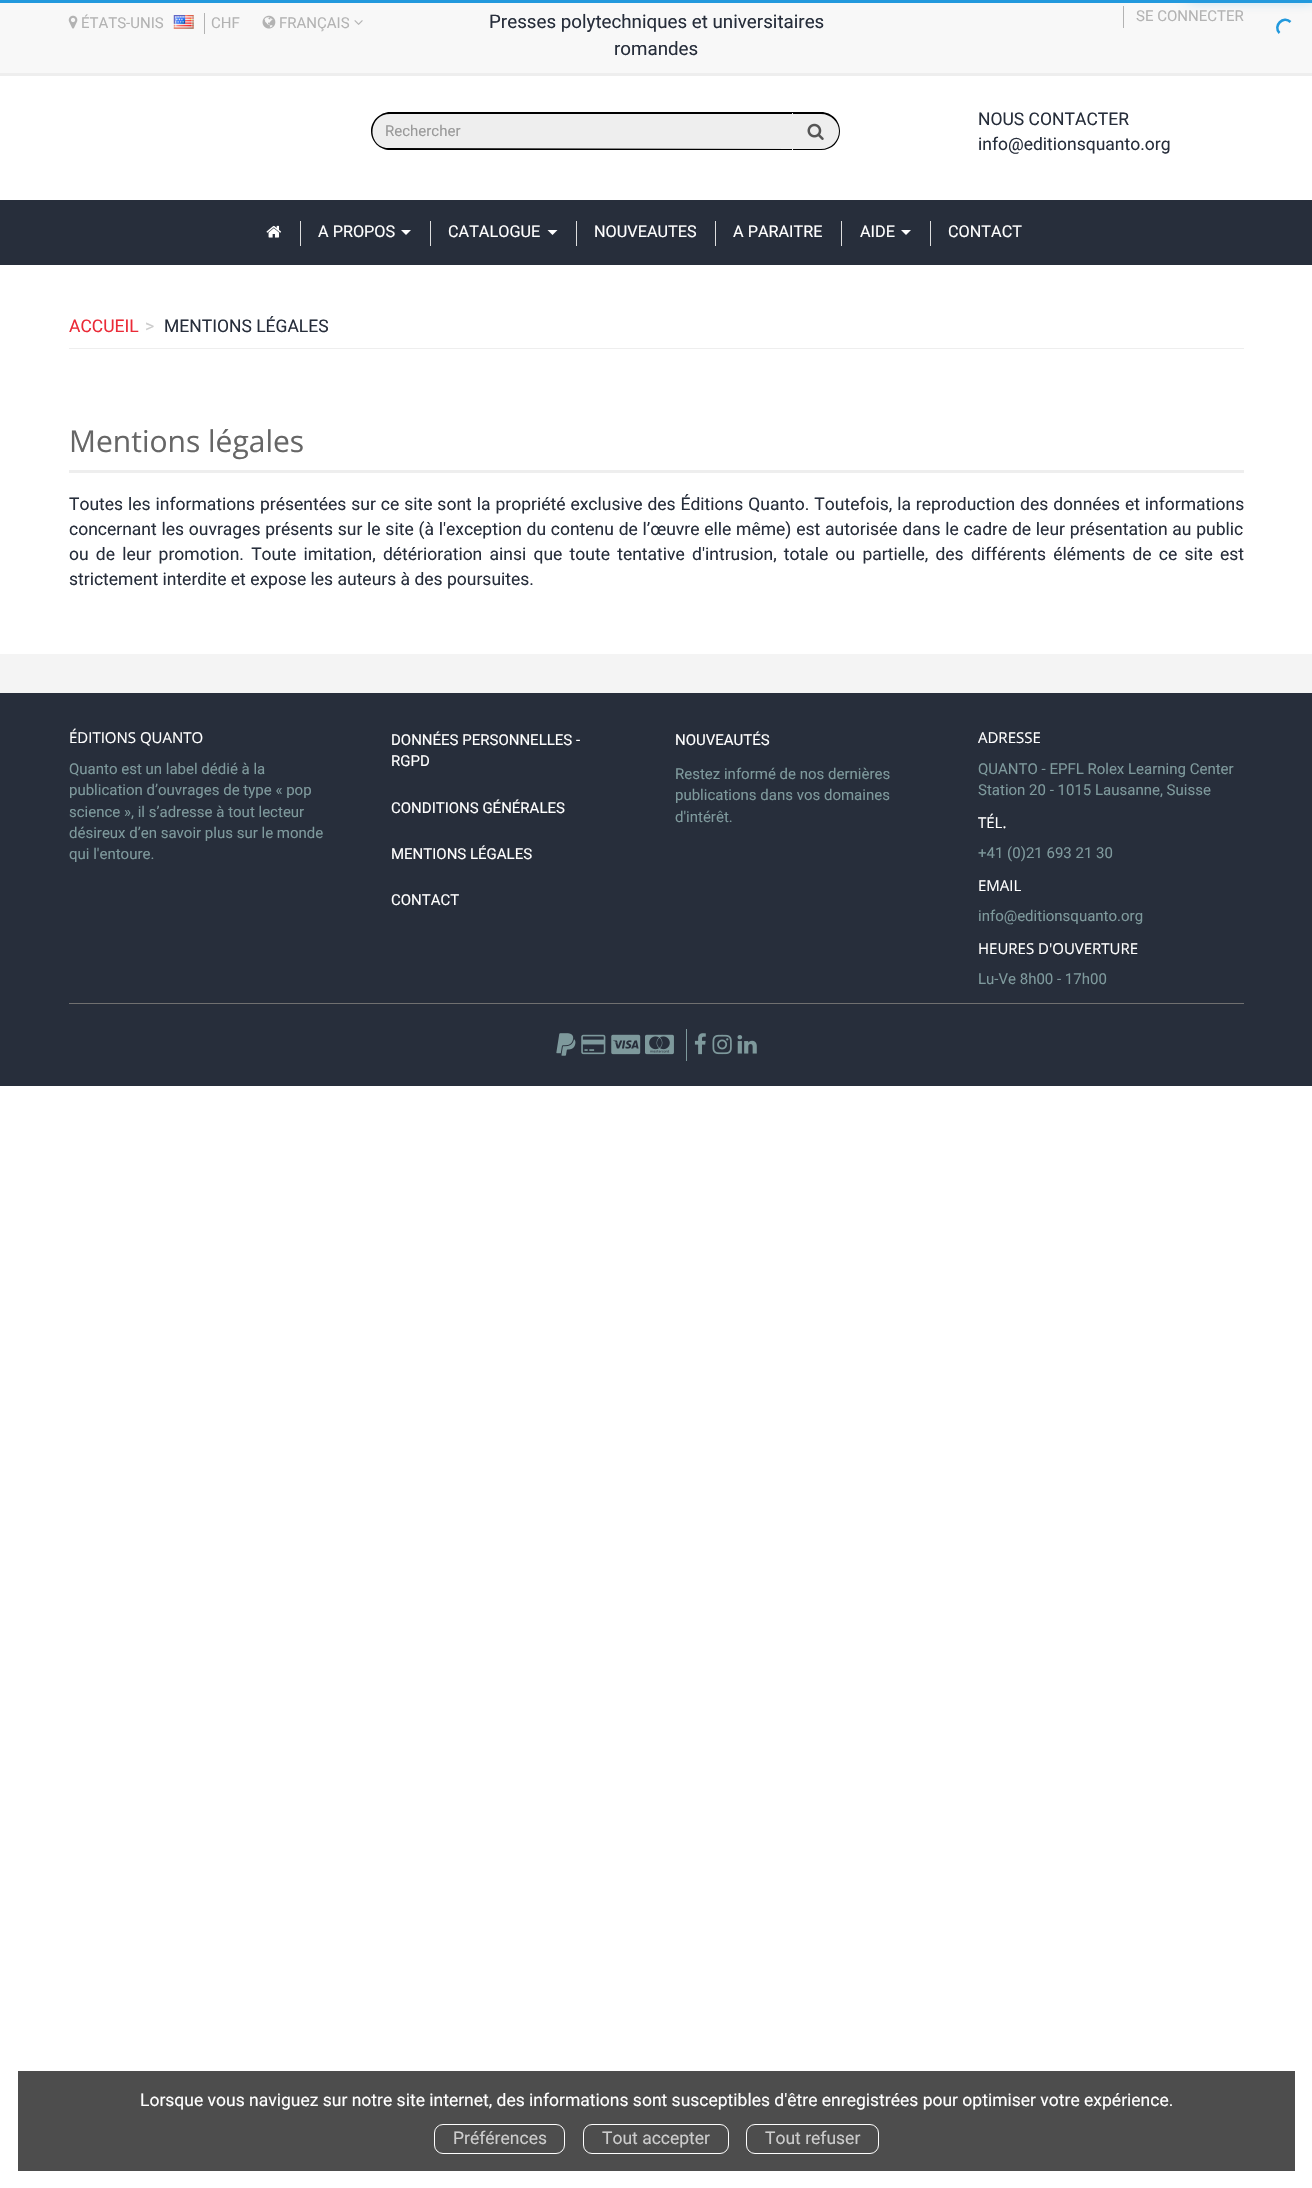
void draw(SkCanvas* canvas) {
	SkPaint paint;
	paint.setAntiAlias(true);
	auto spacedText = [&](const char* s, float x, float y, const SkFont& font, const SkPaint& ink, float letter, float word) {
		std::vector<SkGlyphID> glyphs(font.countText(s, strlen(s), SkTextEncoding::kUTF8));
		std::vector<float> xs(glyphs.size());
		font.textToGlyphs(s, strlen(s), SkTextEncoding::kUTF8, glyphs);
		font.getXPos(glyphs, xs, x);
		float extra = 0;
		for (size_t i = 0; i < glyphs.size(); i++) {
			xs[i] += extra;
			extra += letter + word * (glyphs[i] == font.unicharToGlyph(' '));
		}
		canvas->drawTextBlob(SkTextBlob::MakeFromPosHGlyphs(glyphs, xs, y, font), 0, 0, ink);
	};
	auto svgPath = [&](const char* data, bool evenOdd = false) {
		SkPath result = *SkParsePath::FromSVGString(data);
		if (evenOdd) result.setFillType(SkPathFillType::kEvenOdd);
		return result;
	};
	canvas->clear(0xffffffff);
	paint.setColor(0xff2299dd);
	canvas->drawRect(SkRect::MakeXYWH(0, 0, 1312, 3), paint);
	paint.setColor(0xfff8f8f8);
	canvas->drawRect(SkRect::MakeXYWH(0, 3, 1312, 70), paint);
	paint.setColor(0xff2299dd);
	paint.setMaskFilter(SkMaskFilter::MakeBlur(kNormal_SkBlurStyle, 6.5));
	canvas->drawRect(SkRect::MakeXYWH(1188, -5, 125, 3), paint);
	paint.setMaskFilter(nullptr);
	paint.setStroke(true);
	paint.setStrokeWidth(2.5);
	canvas->drawPath(svgPath("M1279.5 33C1272.5 26 1283.5 15 1290.5 22"), paint);
	paint.setStroke(false);
	paint.setColor(0xffeeeeee);
	canvas->drawRect(SkRect::MakeXYWH(0, 73, 1312, 3), paint);
	canvas->drawImageRect(SkImages::DeferredFromEncodedData(SkData::MakeFromFileName("img1.png")), SkRect::MakeXYWH(68, 15, 10, 14), SkSamplingOptions());
	SkFont f1(fontMgr->matchFamilyStyle("Roboto", SkFontStyle::Normal()), 15);
	f1.setSubpixel(true);
	paint.setColor(0xffb3b3b3);
	canvas->drawString("ÉTATS-UNIS", 81, 28, f1, paint);
	canvas->drawImageRect(SkImages::DeferredFromEncodedData(SkData::MakeFromFileName("img2.png")), SkRect::MakeXYWH(173, 15, 21, 14), SkSamplingOptions());
	canvas->drawRect(SkRect::MakeXYWH(204, 13, 1, 21), paint);
	canvas->drawString("CHF", 211, 28, f1, paint);
	canvas->drawImageRect(SkImages::DeferredFromEncodedData(SkData::MakeFromFileName("img3.png")), SkRect::MakeXYWH(262, 15, 14, 14), SkSamplingOptions());
	canvas->drawString("FRANÇAIS", 279, 28, f1, paint);
	canvas->drawImageRect(SkImages::DeferredFromEncodedData(SkData::MakeFromFileName("img4.png")), SkRect::MakeXYWH(354, 20, 9, 5), SkSamplingOptions());
	SkFont f2(fontMgr->matchFamilyStyle("Roboto", SkFontStyle::Normal()), 18.75);
	f2.setSubpixel(true);
	paint.setColor(0xff272e3b);
	canvas->drawString("Presses polytechniques et universitaires", 489, 28, f2, paint);
	canvas->drawString("romandes", 614, 55, f2, paint);
	paint.setColor(0xffb3b3b3);
	canvas->drawRect(SkRect::MakeXYWH(1123, 6, 1, 22), paint);
	canvas->drawString("SE CONNECTER", 1136, 21, f1, paint);
	paint.setColor(0xffeeeeee);
	canvas->drawPath(svgPath("M793 113H821.5C831.5 113 840 121.5 840 131.5C840 141.5 831.5 150 821.5 150H793Z"), paint);
	paint.setColor(0xff000000);
	canvas->drawPath(svgPath("M792 112H821C832 112 840 121 840 131C840 142 832 150 821 150H792ZM792 114H821C831 114 839 122 839 131C839 141 831 149 821 149H792Z", true), paint);
	paint.setColor(0xffeeeeee);
	canvas->drawPath(svgPath("M389.5 113H793V150H389.5C379.5 150 371 141.5 371 131.5C371 121.5 379.5 113 389.5 113Z"), paint);
	paint.setColor(0xff000000);
	canvas->drawPath(svgPath("M390 112H792V150H390C380 150 371 142 371 131C371 121 380 112 390 112ZM390 114H792V149L386 148C366 144 369 114 390 114Z", true), paint);
	paint.setColor(0xff999999);
	canvas->drawString("Rechercher", 385, 136, f1, paint);
	canvas->drawImageRect(SkImages::DeferredFromEncodedData(SkData::MakeFromFileName("img5.png")), SkRect::MakeXYWH(807, 123, 17, 17), SkSamplingOptions());
	SkFont f3(fontMgr->matchFamilyStyle("Roboto", SkFontStyle::Normal()), 17.5);
	f3.setSubpixel(true);
	paint.setColor(0xff272e3b);
	canvas->drawString("NOUS CONTACTER", 978, 125, f3, paint);
	canvas->drawString("info@editionsquanto.org", 978, 150, f3, paint);
	canvas->drawRect(SkRect::MakeXYWH(0, 200, 1312, 65), paint);
	paint.setColor(0xffdddddd);
	canvas->drawRect(SkRect::MakeXYWH(300, 221, 1, 25), paint);
	canvas->drawImageRect(SkImages::DeferredFromEncodedData(SkData::MakeFromFileName("img6.png")), SkRect::MakeXYWH(266, 225, 16, 13), SkSamplingOptions());
	canvas->drawRect(SkRect::MakeXYWH(430, 221, 1, 25), paint);
	SkFont f4(fontMgr->matchFamilyStyle("Roboto", SkFontStyle::Normal()), 16.25);
	f4.setSubpixel(true);
	paint.setColor(0xffffffff);
	canvas->drawString("A PROPOS", 318, 237, f4, paint);
	canvas->drawPath(svgPath("M401 230H411L406 235Z"), paint);
	paint.setColor(0xffdddddd);
	canvas->drawRect(SkRect::MakeXYWH(576, 221, 1, 25), paint);
	paint.setColor(0xffffffff);
	canvas->drawString("CATALOGUE", 448, 237, f4, paint);
	canvas->drawPath(svgPath("M547.5 230H557.5L552.5 235Z"), paint);
	paint.setColor(0xffdddddd);
	canvas->drawRect(SkRect::MakeXYWH(715, 221, 1, 25), paint);
	paint.setColor(0xffffffff);
	canvas->drawString("NOUVEAUTES", 594, 237, f4, paint);
	paint.setColor(0xffdddddd);
	canvas->drawRect(SkRect::MakeXYWH(841, 221, 1, 25), paint);
	paint.setColor(0xffffffff);
	canvas->drawString("A PARAITRE", 733, 237, f4, paint);
	paint.setColor(0xffdddddd);
	canvas->drawRect(SkRect::MakeXYWH(930, 221, 1, 25), paint);
	paint.setColor(0xffffffff);
	canvas->drawString("AIDE", 860, 237, f4, paint);
	canvas->drawPath(svgPath("M901 230H911L906 235Z"), paint);
	canvas->drawString("CONTACT", 948, 237, f4, paint);
	paint.setColor(0xffeeeeee);
	canvas->drawRect(SkRect::MakeXYWH(69, 348, 1175, 1), paint);
	paint.setColor(0xffeb2a37);
	canvas->drawString("ACCUEIL", 69, 332, f3, paint);
	paint.setColor(0xffcccccc);
	canvas->drawString(">", 145, 332, f3, paint);
	paint.setColor(0xff272e3b);
	canvas->drawString("MENTIONS LÉGALES", 164, 332, f3, paint);
	paint.setColor(0xffeeeeee);
	canvas->drawRect(SkRect::MakeXYWH(69, 470, 1175, 3), paint);
	SkFont f5(fontMgr->matchFamilyStyle("Open Sans", SkFontStyle::Normal()), 30);
	f5.setSubpixel(true);
	paint.setColor(0xff666666);
	canvas->drawString("Mentions légales", 69, 452, f5, paint);
	paint.setColor(0xff272e3b);
	spacedText("Toutes les informations présentées sur ce site sont la propriété exclusive des Éditions Quanto. Toutefois, la reproduction des données et informations", 69, 510, f3, paint, 0, 0.6);
	spacedText("concernant les ouvrages présents sur le site (à l'exception du contenu de l’œuvre elle même) est autorisée dans le cadre de leur présentation au public", 69, 535, f3, paint, 0, 0.4);
	spacedText("ou de leur promotion. Toute imitation, détérioration ainsi que toute tentative d'intrusion, totale ou partielle, des différents éléments de ce site est", 69, 560, f3, paint, 0, 2.9);
	canvas->drawString("strictement interdite et expose les auteurs à des poursuites.", 69, 585, f3, paint);
	paint.setColor(0xfff4f4f4);
	canvas->drawRect(SkRect::MakeXYWH(0, 654, 1312, 39), paint);
	paint.setColor(0xff272e3b);
	canvas->drawRect(SkRect::MakeXYWH(0, 693, 1312, 393), paint);
	SkFont f6(fontMgr->matchFamilyStyle("Open Sans", SkFontStyle::Normal()), 15);
	f6.setSubpixel(true);
	paint.setColor(0xffffffff);
	canvas->drawString("ÉDITIONS QUANTO", 69, 743, f6, paint);
	paint.setColor(0xff7e999c);
	canvas->drawString("Quanto est un label dédié à la", 69, 774, f1, paint);
	canvas->drawString("publication d’ouvrages de type « pop", 69, 795, f1, paint);
	canvas->drawString("science », il s’adresse à tout lecteur", 69, 817, f1, paint);
	canvas->drawString("désireux d’en savoir plus sur le monde", 69, 838, f1, paint);
	canvas->drawString("qui l'entoure.", 69, 859, f1, paint);
	paint.setColor(0xffffffff);
	canvas->drawString("DONNÉES PERSONNELLES -", 391, 745, f1, paint);
	canvas->drawString("RGPD", 391, 766, f1, paint);
	canvas->drawString("CONDITIONS GÉNÉRALES", 391, 813, f1, paint);
	canvas->drawString("MENTIONS LÉGALES", 391, 859, f1, paint);
	canvas->drawString("CONTACT", 391, 905, f1, paint);
	canvas->drawString("NOUVEAUTÉS", 675, 745, f1, paint);
	paint.setColor(0xff7e999c);
	canvas->drawString("Restez informé de nos dernières", 675, 779, f1, paint);
	canvas->drawString("publications dans vos domaines", 675, 800, f1, paint);
	canvas->drawString("d'intérêt.", 675, 822, f1, paint);
	paint.setColor(0xffffffff);
	canvas->drawString("ADRESSE", 978, 743, f6, paint);
	paint.setColor(0xff7e999c);
	canvas->drawString("QUANTO - EPFL Rolex Learning Center", 978, 774, f1, paint);
	canvas->drawString("Station 20 - 1015 Lausanne, Suisse", 978, 795, f1, paint);
	paint.setColor(0xffffffff);
	canvas->drawString("TÉL.", 978, 828, f6, paint);
	paint.setColor(0xff7e999c);
	canvas->drawString("+41 (0)21 693 21 30", 978, 858, f1, paint);
	paint.setColor(0xffffffff);
	canvas->drawString("EMAIL", 978, 891, f6, paint);
	paint.setColor(0xff7e999c);
	canvas->drawString("info@editionsquanto.org", 978, 921, f1, paint);
	paint.setColor(0xffffffff);
	canvas->drawString("HEURES D'OUVERTURE", 978, 954, f6, paint);
	paint.setColor(0xff7e999c);
	canvas->drawString("Lu-Ve 8h00 - 17h00", 978, 984, f1, paint);
	paint.setColor(0xff707070);
	canvas->drawRect(SkRect::MakeXYWH(69, 1003, 1175, 1), paint);
	canvas->drawImageRect(SkImages::DeferredFromEncodedData(SkData::MakeFromFileName("img7.png")), SkRect::MakeXYWH(556, 1033, 20, 23), SkSamplingOptions());
	canvas->drawImageRect(SkImages::DeferredFromEncodedData(SkData::MakeFromFileName("img8.png")), SkRect::MakeXYWH(581, 1034, 25, 21), SkSamplingOptions());
	canvas->drawImageRect(SkImages::DeferredFromEncodedData(SkData::MakeFromFileName("img9.png")), SkRect::MakeXYWH(611, 1034, 30, 21), SkSamplingOptions());
	canvas->drawImageRect(SkImages::DeferredFromEncodedData(SkData::MakeFromFileName("img10.png")), SkRect::MakeXYWH(645, 1034, 29, 21), SkSamplingOptions());
	paint.setColor(0xff7e999c);
	canvas->drawRect(SkRect::MakeXYWH(686, 1029, 1, 32), paint);
	canvas->drawImageRect(SkImages::DeferredFromEncodedData(SkData::MakeFromFileName("img11.png")), SkRect::MakeXYWH(694, 1033, 12, 22), SkSamplingOptions());
	canvas->drawImageRect(SkImages::DeferredFromEncodedData(SkData::MakeFromFileName("img12.png")), SkRect::MakeXYWH(712, 1034, 20, 21), SkSamplingOptions());
	canvas->drawImageRect(SkImages::DeferredFromEncodedData(SkData::MakeFromFileName("img13.png")), SkRect::MakeXYWH(737, 1035, 20, 19), SkSamplingOptions());
	paint.setColor(0xff4d4d4d);
	canvas->drawRect(SkRect::MakeXYWH(18, 2071, 1277, 100), paint);
	paint.setColor(0xffffffff);
	canvas->drawString("Lorsque vous naviguez sur notre site internet, des informations sont susceptibles d'être enregistrées pour optimiser votre expérience.", 140, 2106, f3, paint);
	paint.setStroke(true);
	paint.setStrokeWidth(1);
	canvas->drawRoundRect(SkRect::MakeXYWH(434.5, 2124.5, 130, 29), 8.5, 8.5, paint);
	paint.setStroke(false);
	paint.setColor(0xffcccccc);
	canvas->drawString("Préférences", 453, 2144, f3, paint);
	paint.setStroke(true);
	paint.setColor(0xffffffff);
	canvas->drawRoundRect(SkRect::MakeXYWH(583.5, 2124.5, 145, 29), 8.5, 8.5, paint);
	paint.setStroke(false);
	paint.setColor(0xffcccccc);
	canvas->drawString("Tout accepter", 602, 2144, f3, paint);
	paint.setStroke(true);
	paint.setColor(0xffffffff);
	canvas->drawRoundRect(SkRect::MakeXYWH(746.5, 2124.5, 132, 29), 8.5, 8.5, paint);
	paint.setStroke(false);
	paint.setColor(0xffcccccc);
	canvas->drawString("Tout refuser", 765, 2144, f3, paint);
}
